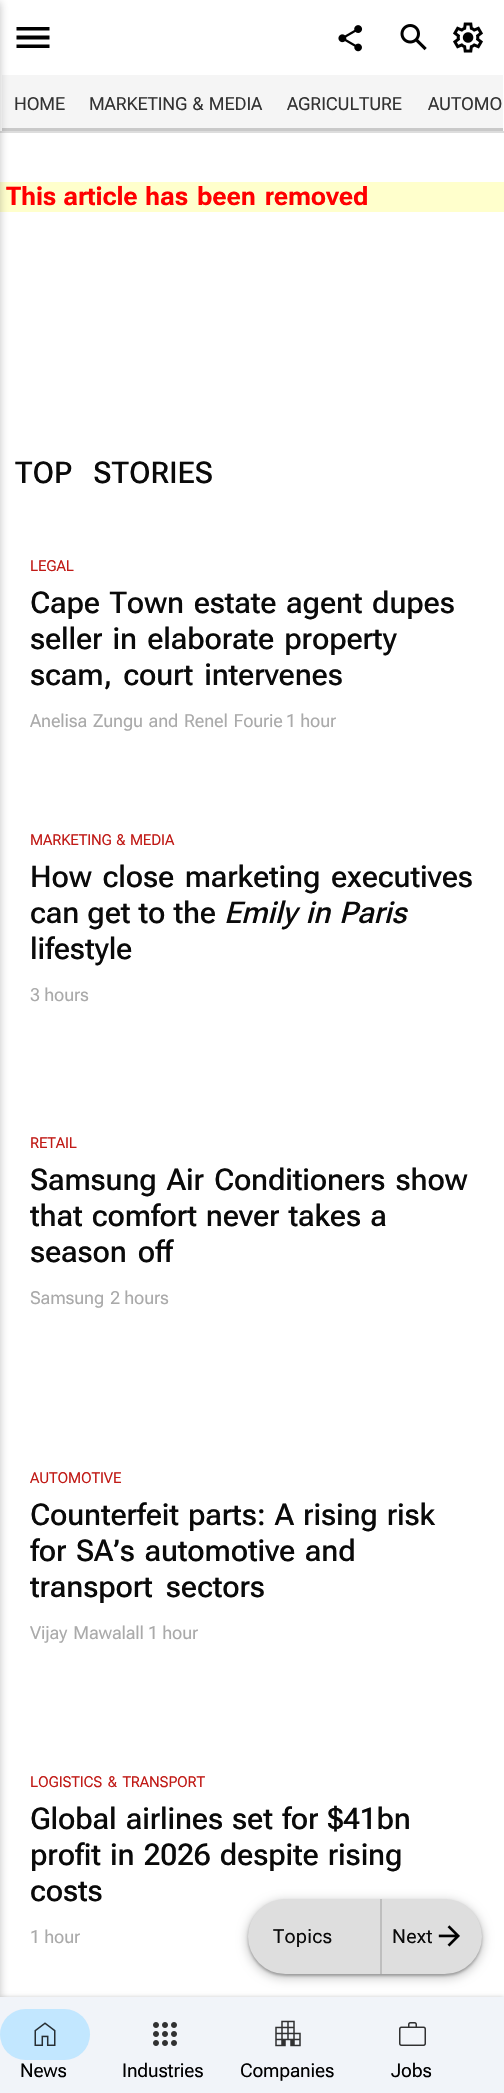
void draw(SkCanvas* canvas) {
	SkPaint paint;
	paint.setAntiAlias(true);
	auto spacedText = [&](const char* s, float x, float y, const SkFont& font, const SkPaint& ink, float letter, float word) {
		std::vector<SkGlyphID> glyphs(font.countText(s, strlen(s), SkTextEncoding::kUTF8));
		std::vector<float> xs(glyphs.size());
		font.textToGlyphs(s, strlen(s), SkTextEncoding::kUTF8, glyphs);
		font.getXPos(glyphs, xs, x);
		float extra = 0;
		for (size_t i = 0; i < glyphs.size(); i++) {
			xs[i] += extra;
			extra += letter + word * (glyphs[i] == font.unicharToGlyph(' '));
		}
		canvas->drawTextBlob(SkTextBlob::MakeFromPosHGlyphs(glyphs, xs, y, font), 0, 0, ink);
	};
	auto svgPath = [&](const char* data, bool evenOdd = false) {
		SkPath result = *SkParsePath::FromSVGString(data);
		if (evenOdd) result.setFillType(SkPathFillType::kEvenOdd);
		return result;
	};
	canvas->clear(0xffffffff);
	paint.setColor(0xffdddddd);
	canvas->drawRect(SkRect::MakeXYWH(0, 131, 504, 2), paint);
	paint.setColor(0xfff5f5f5);
	canvas->drawRect(SkRect::MakeXYWH(2, 75, 501, 53), paint);
	paint.setColor(0xffc9c9c9);
	canvas->drawRect(SkRect::MakeXYWH(2, 128, 501, 3), paint);
	paint.setColor(0xffffffcc);
	canvas->drawRect(SkRect::MakeXYWH(0, 182, 504, 30), paint);
	paint.setColor(0x47202124);
	paint.setMaskFilter(SkMaskFilter::MakeBlur(kNormal_SkBlurStyle, 4.5));
	canvas->drawRect(SkRect::MakeXYWH(-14, 2, 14, 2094), paint);
	paint.setMaskFilter(nullptr);
	paint.setColor(0xff000000);
	canvas->drawPath(svgPath("M16.5 48V44.5H49.5V48ZM16.5 39.5V35.5H49.5V39.5ZM16.5 30.5V27H49.5V30.5Z"), paint);
	canvas->drawImageRect(SkImages::DeferredFromEncodedData(SkData::MakeFromFileName("img1.png")), SkRect::MakeXYWH(338, 25, 25, 27), SkSamplingOptions());
	canvas->drawImageRect(SkImages::DeferredFromEncodedData(SkData::MakeFromFileName("img2.png")), SkRect::MakeXYWH(400, 24, 27, 27), SkSamplingOptions());
	canvas->drawImageRect(SkImages::DeferredFromEncodedData(SkData::MakeFromFileName("img3.png")), SkRect::MakeXYWH(453, 22, 30, 31), SkSamplingOptions());
	SkFont f1(fontMgr->matchFamilyStyle("Roboto Flex", SkFontStyle::Normal()), 18);
	f1.setSubpixel(true);
	paint.setColor(0xff333333);
	spacedText("HOME", 14, 110, f1, paint, -0.15, 0);
	spacedText("MARKETING & MEDIA", 89, 110, f1, paint, -0.15, 1);
	spacedText("AGRICULTURE", 287, 110, f1, paint, -0.15, 0);
	spacedText("AUTOMO", 428, 110, f1, paint, -0.15, 0);
	SkFont f2(fontMgr->matchFamilyStyle("Roboto Flex", SkFontStyle::Bold()), 25.5);
	f2.setSubpixel(true);
	paint.setColor(0xffff0000);
	spacedText("This article", 6, 205, f2, paint, -0.15, 1);
	spacedText("has been removed", 145, 205, f2, paint, -0.15, 3);
	paint.setColor(0x4d000000);
	paint.setMaskFilter(SkMaskFilter::MakeBlur(kNormal_SkBlurStyle, 1.5));
	canvas->drawRoundRect(SkRect::MakeXYWH(248, 1901, 234, 75), 37.5, 37.5, paint);
	paint.setMaskFilter(nullptr);
	paint.setColor(0x26000000);
	paint.setMaskFilter(SkMaskFilter::MakeBlur(kNormal_SkBlurStyle, 4.5));
	canvas->drawRoundRect(SkRect::MakeXYWH(245, 1899, 240, 81), 40.5, 40.5, paint);
	paint.setMaskFilter(nullptr);
	paint.setColor(0xffdedede);
	canvas->drawRoundRect(SkRect::MakeXYWH(248, 1899, 234, 75), 37.5, 37.5, paint);
	SkFont f3(fontMgr->matchFamilyStyle("Roboto Flex", SkFontStyle::Normal()), 19.5);
	f3.setSubpixel(true);
	paint.setColor(0xff0a0a0a);
	spacedText("Topics", 273, 1943, f3, paint, 0.25, 0);
	paint.setColor(0xffbebebe);
	canvas->drawRect(SkRect::MakeXYWH(380, 1899, 2, 75), paint);
	paint.setColor(0xff0a0a0a);
	spacedText("Next", 392, 1943, f3, paint, 0.25, 0);
	canvas->drawImageRect(SkImages::DeferredFromEncodedData(SkData::MakeFromFileName("img4.png")), SkRect::MakeXYWH(438, 1925, 22, 22), SkSamplingOptions());
	SkFont f4(fontMgr->matchFamilyStyle("Roboto Flex", SkFontStyle(500, SkFontStyle::kNormal_Width, SkFontStyle::kUpright_Slant)), 30);
	f4.setSubpixel(true);
	spacedText("TOP STORIES", 15, 483, f4, paint, 0, 14);
	SkFont f5(fontMgr->matchFamilyStyle("Roboto Flex", SkFontStyle::Normal()), 15);
	f5.setSubpixel(true);
	paint.setColor(0xffc11b17);
	spacedText("LEGAL", 30, 571, f5, paint, -0.15, 0);
	paint.setColor(0xff0a0a0a);
	spacedText("Cape Town estate agent dupes", 30, 613, f4, paint, -0.15, 2.5);
	spacedText("seller in elaborate property", 30, 649, f4, paint, -0.15, 3);
	spacedText("scam, court intervenes", 30, 685, f4, paint, -0.15, 4);
	paint.setColor(0xffaaaaaa);
	spacedText("Anelisa Zungu and Renel Fourie", 30, 727, f1, paint, -0.15, 1.5);
	spacedText("1 hour", 286, 727, f1, paint, -0.15, 0);
	paint.setColor(0xffc11b17);
	spacedText("MARKETING & MEDIA", 30, 845, f5, paint, -0.15, 1);
	paint.setColor(0xff0a0a0a);
	spacedText("How close marketing executives", 30, 887, f4, paint, -0.15, 3.5);
	spacedText("can get to the", 30, 923, f4, paint, -0.15, 1);
	SkFont f6(fontMgr->matchFamilyStyle("Roboto Flex", SkFontStyle(500, SkFontStyle::kNormal_Width, SkFontStyle::kItalic_Slant)), 30);
	f6.setSubpixel(true);
	spacedText("Emily in Paris", 224, 923, f6, paint, -0.15, 2);
	spacedText("lifestyle", 30, 959, f4, paint, -0.15, 0);
	paint.setColor(0xffaaaaaa);
	spacedText("3 hours", 30, 1001, f1, paint, -0.15, 0);
	paint.setColor(0xffc11b17);
	spacedText("RETAIL", 30, 1148, f5, paint, -0.15, 0);
	paint.setColor(0xff0a0a0a);
	spacedText("Samsung Air Conditioners show", 30, 1190, f4, paint, -0.15, 3);
	spacedText("that comfort never takes a", 30, 1226, f4, paint, -0.15, 2);
	spacedText("season off", 30, 1262, f4, paint, -0.15, 4);
	paint.setColor(0xffaaaaaa);
	spacedText("Samsung", 30, 1304, f1, paint, -0.15, 0);
	spacedText("2 hours", 110, 1304, f1, paint, -0.15, 0);
	paint.setColor(0xffc11b17);
	spacedText("AUTOMOTIVE", 30, 1483, f5, paint, -0.15, 0);
	paint.setColor(0xff0a0a0a);
	spacedText("Counterfeit parts: A rising risk", 30, 1525, f4, paint, -0.15, 2);
	spacedText("for SA’s automotive and", 30, 1561, f4, paint, -0.15, 2.5);
	spacedText("transport sectors", 30, 1597, f4, paint, -0.15, 6);
	paint.setColor(0xffaaaaaa);
	spacedText("Vijay Mawalall", 30, 1639, f1, paint, -0.15, 2);
	spacedText("1 hour", 148, 1639, f1, paint, -0.15, 0);
	paint.setColor(0xffc11b17);
	spacedText("LOGISTICS & TRANSPORT", 30, 1787, f5, paint, -0.15, 2);
	paint.setColor(0xff0a0a0a);
	spacedText("Global airlines set for $41bn", 30, 1829, f4, paint, -0.15, 2);
	spacedText("profit in 2026 despite rising", 30, 1865, f4, paint, -0.15, 2);
	spacedText("costs", 30, 1901, f4, paint, -0.15, 0);
	paint.setColor(0xffaaaaaa);
	spacedText("1 hour", 30, 1943, f1, paint, -0.15, 0);
	paint.setColor(0x33000000);
	paint.setMaskFilter(SkMaskFilter::MakeBlur(kNormal_SkBlurStyle, 2));
	canvas->drawRect(SkRect::MakeXYWH(0, 1997, 504, 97), paint);
	paint.setMaskFilter(nullptr);
	paint.setColor(0xfff1f4f9);
	canvas->drawRect(SkRect::MakeXYWH(0, 1997, 504, 96), paint);
	paint.setColor(0xffc2e7ff);
	canvas->drawRoundRect(SkRect::MakeXYWH(0, 2009, 90, 51), 25.5, 25.5, paint);
	canvas->drawImageRect(SkImages::DeferredFromEncodedData(SkData::MakeFromFileName("img5.png")), SkRect::MakeXYWH(34, 2022, 22, 24), SkSamplingOptions());
	SkFont f7(fontMgr->matchFamilyStyle("Roboto Flex", SkFontStyle::Normal()), 19);
	f7.setSubpixel(true);
	paint.setColor(0xff000000);
	spacedText("News", 20, 2077, f7, paint, -0.15, 0);
	canvas->drawImageRect(SkImages::DeferredFromEncodedData(SkData::MakeFromFileName("img6.png")), SkRect::MakeXYWH(153, 2022, 24, 24), SkSamplingOptions());
	spacedText("Industries", 122, 2077, f7, paint, -0.15, 0);
	canvas->drawImageRect(SkImages::DeferredFromEncodedData(SkData::MakeFromFileName("img7.png")), SkRect::MakeXYWH(275, 2020, 26, 27), SkSamplingOptions());
	spacedText("Companies", 240, 2077, f7, paint, -0.15, 0);
	canvas->drawImageRect(SkImages::DeferredFromEncodedData(SkData::MakeFromFileName("img8.png")), SkRect::MakeXYWH(399, 2022, 27, 24), SkSamplingOptions());
	spacedText("Jobs", 391, 2077, f7, paint, -0.15, 0);
}
